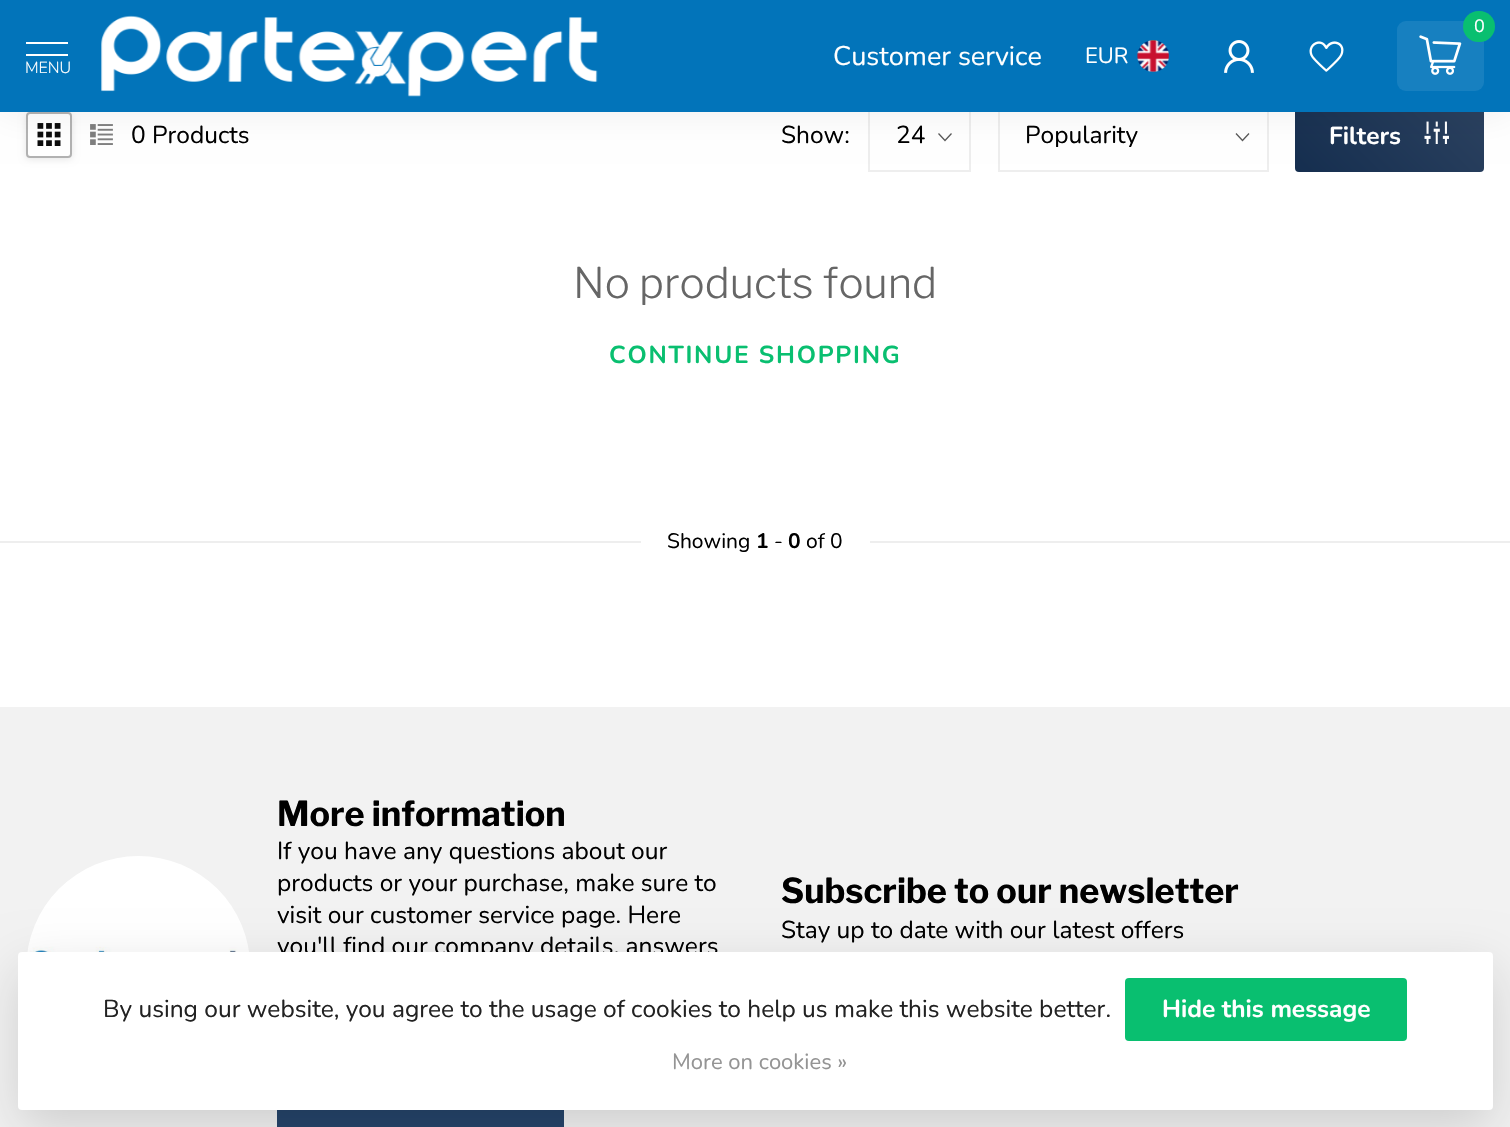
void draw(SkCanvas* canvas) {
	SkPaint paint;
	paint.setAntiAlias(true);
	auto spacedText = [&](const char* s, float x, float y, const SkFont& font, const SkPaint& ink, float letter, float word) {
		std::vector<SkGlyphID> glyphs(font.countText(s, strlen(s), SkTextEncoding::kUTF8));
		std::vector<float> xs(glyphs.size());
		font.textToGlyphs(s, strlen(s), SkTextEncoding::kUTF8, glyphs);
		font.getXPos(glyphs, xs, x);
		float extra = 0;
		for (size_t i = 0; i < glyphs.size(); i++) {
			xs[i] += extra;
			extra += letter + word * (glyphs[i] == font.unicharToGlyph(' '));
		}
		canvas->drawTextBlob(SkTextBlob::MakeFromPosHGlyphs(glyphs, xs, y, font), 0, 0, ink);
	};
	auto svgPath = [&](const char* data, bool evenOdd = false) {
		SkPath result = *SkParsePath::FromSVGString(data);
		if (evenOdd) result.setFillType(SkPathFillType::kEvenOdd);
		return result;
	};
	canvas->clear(0xffffffff);
	canvas->save();
	canvas->clipPath(svgPath("M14 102H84V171H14ZM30 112H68C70 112 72 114 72 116V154C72 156 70 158 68 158H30C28 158 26 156 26 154V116C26 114 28 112 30 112Z", true), true);
	paint.setColor(0x1a000000);
	paint.setMaskFilter(SkMaskFilter::MakeBlur(kNormal_SkBlurStyle, 3.5));
	canvas->drawRoundRect(SkRect::MakeXYWH(26, 114, 46, 45), 4, 4, paint);
	paint.setMaskFilter(nullptr);
	canvas->restore();
	paint.setStroke(true);
	paint.setStrokeWidth(2);
	paint.setColor(0xffb2b2b2);
	canvas->drawRoundRect(SkRect::MakeXYWH(27, 113, 44, 44), 3, 3, paint);
	canvas->drawImageRect(SkImages::DeferredFromEncodedData(SkData::MakeFromFileName("img6.png")), SkRect::MakeXYWH(37, 123, 24, 23), SkSamplingOptions());
	canvas->drawImageRect(SkImages::DeferredFromEncodedData(SkData::MakeFromFileName("img7.png")), SkRect::MakeXYWH(90, 124, 23, 21), SkSamplingOptions());
	paint.setStrokeWidth(1.3);
	paint.setColor(0xff595959);
	canvas->drawPath(svgPath("M951.5 133.5L945 140.5L938.5 133.5"), paint);
	paint.setStrokeWidth(2);
	paint.setColor(0xffeeeeee);
	canvas->drawRect(SkRect::MakeXYWH(869, 99, 101, 72), paint);
	paint.setStrokeWidth(1.3);
	paint.setColor(0xff595959);
	canvas->drawPath(svgPath("M1249 133.5L1242.5 140.5L1236 133.5"), paint);
	paint.setStrokeWidth(2);
	paint.setColor(0xffeeeeee);
	canvas->drawRect(SkRect::MakeXYWH(999, 99, 269, 72), paint);
	paint.setStroke(false);
	{
		const SkColor colors[] = {0xff152e4f, 0xff2c4260};
		const float stops[] = {0, 1};
		const SkPoint ends[] = {{1324, 200}, {1455, 69}};
		paint.setShader(SkGradientShader::MakeLinear(ends, colors, stops, 2, SkTileMode::kClamp));
		paint.setAlpha(255);
	}
	canvas->drawRoundRect(SkRect::MakeXYWH(1295, 98, 189, 74), 4, 4, paint);
	canvas->drawImageRect(SkImages::DeferredFromEncodedData(SkData::MakeFromFileName("img8.png")), SkRect::MakeXYWH(1424, 121, 25, 23), SkSamplingOptions());
	paint.setShader(nullptr);
	paint.setColor(0x12000000);
	paint.setMaskFilter(SkMaskFilter::MakeBlur(kNormal_SkBlurStyle, 17.5));
	canvas->drawRect(SkRect::MakeXYWH(0, -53, 1510, 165), paint);
	paint.setMaskFilter(nullptr);
	paint.setColor(0xff0274ba);
	canvas->drawRect(SkRect::MakeXYWH(0, 0, 1510, 112), paint);
	paint.setColor(0xff1780c0);
	canvas->drawRoundRect(SkRect::MakeXYWH(1397, 21, 87, 70), 9, 9, paint);
	paint.setColor(0xff09bf70);
	canvas->drawRoundRect(SkRect::MakeXYWH(1463, 11, 32, 31), 15.5, 15.5, paint);
	SkFont f1(fontMgr->matchFamilyStyle("Nunito", SkFontStyle::Normal()), 18);
	f1.setSubpixel(true);
	paint.setColor(0xffffffff);
	canvas->drawString("0", 1474, 32, f1, paint);
	canvas->drawImageRect(SkImages::DeferredFromEncodedData(SkData::MakeFromFileName("img1.png")), SkRect::MakeXYWH(1419, 35, 43, 40), SkSamplingOptions());
	SkFont f2(fontMgr->matchFamilyStyle("Nunito", SkFontStyle::Normal()), 27);
	f2.setSubpixel(true);
	canvas->drawString("Customer service", 833, 65, f2, paint);
	SkFont f3(fontMgr->matchFamilyStyle("Nunito", SkFontStyle::Normal()), 22);
	f3.setSubpixel(true);
	canvas->drawString("EUR", 1085, 63, f3, paint);
	canvas->drawImageRect(SkImages::DeferredFromEncodedData(SkData::MakeFromFileName("img2.png")), SkRect::MakeXYWH(1137, 40, 32, 32), SkSamplingOptions());
	canvas->drawImageRect(SkImages::DeferredFromEncodedData(SkData::MakeFromFileName("img3.png")), SkRect::MakeXYWH(1224, 40, 30, 33), SkSamplingOptions());
	canvas->drawImageRect(SkImages::DeferredFromEncodedData(SkData::MakeFromFileName("img4.png")), SkRect::MakeXYWH(1309, 41, 35, 31), SkSamplingOptions());
	canvas->drawRect(SkRect::MakeXYWH(26, 42, 42, 2), paint);
	canvas->drawRect(SkRect::MakeXYWH(26, 54, 42, 2), paint);
	SkFont f4(fontMgr->matchFamilyStyle("Nunito", SkFontStyle(300, SkFontStyle::kNormal_Width, SkFontStyle::kUpright_Slant)), 16);
	f4.setSubpixel(true);
	canvas->drawString("MENU", 25, 73, f4, paint);
	canvas->drawImageRect(SkImages::DeferredFromEncodedData(SkData::MakeFromFileName("img5.png")), SkRect::MakeXYWH(101, 15, 497, 82), SkSamplingOptions());
	SkFont f5(fontMgr->matchFamilyStyle("Nunito", SkFontStyle::Normal()), 24.5);
	f5.setSubpixel(true);
	paint.setColor(0xff000000);
	canvas->drawString("0 Products", 131, 143, f5, paint);
	canvas->drawString("Show:", 781, 143, f5, paint);
	canvas->drawString("24", 896, 143, f5, paint);
	canvas->save();
	canvas->clipRect(SkRect::MakeXYWH(1026, 123, 197, 24));
	canvas->drawString("Popularity", 1025, 143, f5, paint);
	canvas->restore();
	SkFont f6(fontMgr->matchFamilyStyle("Nunito", SkFontStyle::Bold()), 24.5);
	f6.setSubpixel(true);
	paint.setColor(0xffffffff);
	canvas->drawString("Filters", 1329, 144, f6, paint);
	SkFont f7(fontMgr->matchFamilyStyle("Libre Franklin", SkFontStyle(300, SkFontStyle::kNormal_Width, SkFontStyle::kUpright_Slant)), 42);
	f7.setSubpixel(true);
	paint.setColor(0xff666666);
	canvas->drawString("No products found", 573, 298, f7, paint);
	paint.setColor(0xff09bf70);
	spacedText("CONTINUE SHOPPING", 609, 363, f6, paint, 1.75, 0);
	paint.setColor(0xffeeeeee);
	canvas->drawRect(SkRect::MakeXYWH(0, 541, 1510, 2), paint);
	paint.setColor(0xffffffff);
	canvas->drawRect(SkRect::MakeXYWH(641, 541, 229, 2), paint);
	SkFont f8(fontMgr->matchFamilyStyle("Nunito", SkFontStyle::Normal()), 21);
	f8.setSubpixel(true);
	paint.setColor(0xff000000);
	canvas->drawString("Showing", 667, 548, f8, paint);
	SkFont f9(fontMgr->matchFamilyStyle("Nunito", SkFontStyle::Bold()), 21);
	f9.setSubpixel(true);
	canvas->drawString("1", 756, 548, f9, paint);
	canvas->drawString("0", 788, 548, f9, paint);
	canvas->drawString("of 0", 806, 548, f8, paint);
	canvas->drawString("-", 774, 548, f8, paint);
	paint.setColor(0xfff2f2f2);
	canvas->drawRect(SkRect::MakeXYWH(0, 707, 1510, 420), paint);
	canvas->drawImageRect(SkImages::DeferredFromEncodedData(SkData::MakeFromFileName("img9.png")), SkRect::MakeXYWH(27, 856, 222, 96), SkSamplingOptions());
	SkFont f10(fontMgr->matchFamilyStyle("Libre Franklin", SkFontStyle::Bold()), 34.25);
	f10.setSubpixel(true);
	paint.setColor(0xff000000);
	canvas->drawString("More information", 277, 826, f10, paint);
	canvas->drawString("If you have any questions about our", 277, 859, f5, paint);
	canvas->drawString("products or your purchase, make sure to", 277, 891, f5, paint);
	canvas->drawString("visit our customer service page. Here", 277, 923, f5, paint);
	canvas->drawString("you'll find our company details, answers", 277, 954, f5, paint);
	paint.setColor(0xff25446a);
	canvas->drawRect(SkRect::MakeXYWH(277, 1110, 287, 17), paint);
	paint.setColor(0xff000000);
	canvas->drawString("Subscribe to our newsletter", 781, 903, f10, paint);
	canvas->drawString("Stay up to date with our latest offers", 781, 938, f5, paint);
	paint.setColor(0x26000000);
	paint.setMaskFilter(SkMaskFilter::MakeBlur(kNormal_SkBlurStyle, 26));
	canvas->drawRoundRect(SkRect::MakeXYWH(18, 970, 1475, 157), 4, 4, paint);
	paint.setMaskFilter(nullptr);
	paint.setColor(0xffffffff);
	canvas->drawRoundRect(SkRect::MakeXYWH(18, 952, 1475, 158), 4, 4, paint);
	paint.setColor(0xff222222);
	canvas->drawString("By using our website, you agree to the usage of cookies to help us make this website better.", 103, 1017, f5, paint);
	paint.setColor(0xff09bf70);
	canvas->drawRoundRect(SkRect::MakeXYWH(1125, 978, 282, 63), 4, 4, paint);
	paint.setColor(0xffffffff);
	canvas->drawString("Hide this message", 1162, 1017, f6, paint);
	paint.setColor(0xff949494);
	canvas->drawString("More on cookies »", 672, 1069, f3, paint);
}
